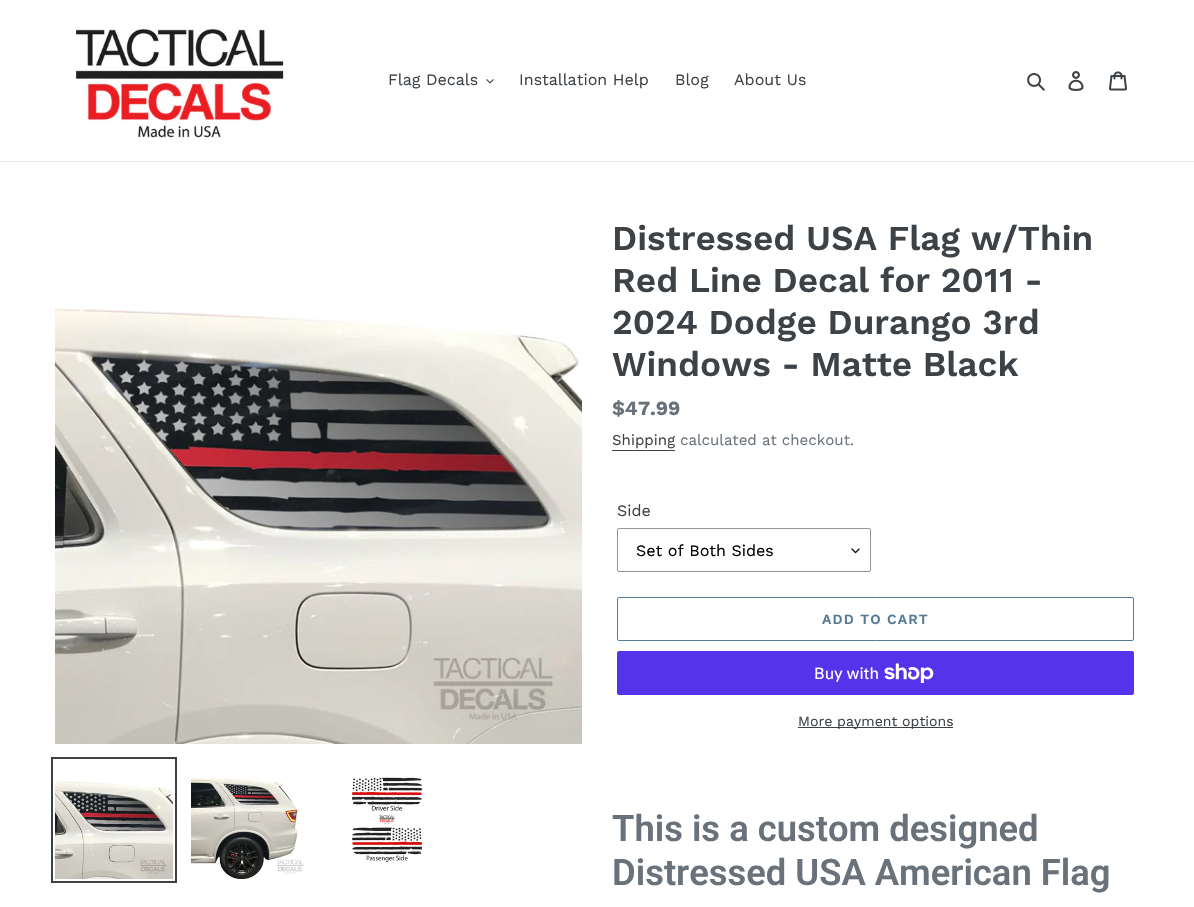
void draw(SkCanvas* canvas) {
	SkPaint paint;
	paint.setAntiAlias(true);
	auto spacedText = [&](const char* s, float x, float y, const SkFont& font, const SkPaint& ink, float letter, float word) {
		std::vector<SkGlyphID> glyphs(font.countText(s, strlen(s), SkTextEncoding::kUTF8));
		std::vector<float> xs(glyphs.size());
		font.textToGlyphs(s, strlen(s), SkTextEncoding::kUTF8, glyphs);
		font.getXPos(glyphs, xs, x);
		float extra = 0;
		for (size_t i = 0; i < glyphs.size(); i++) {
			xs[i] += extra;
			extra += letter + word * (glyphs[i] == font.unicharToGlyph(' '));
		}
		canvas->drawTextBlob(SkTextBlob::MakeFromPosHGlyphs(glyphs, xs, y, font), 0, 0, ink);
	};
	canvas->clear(0xffffffff);
	paint.setColor(0xffe8e9eb);
	canvas->drawRect(SkRect::MakeXYWH(0, 161, 1194, 1), paint);
	canvas->drawImageRect(SkImages::DeferredFromEncodedData(SkData::MakeFromFileName("img1.png")), SkRect::MakeXYWH(75, 29, 210, 109), SkSamplingOptions());
	SkFont f1(fontMgr->matchFamilyStyle("Work Sans", SkFontStyle::Normal()), 16);
	f1.setSubpixel(true);
	paint.setColor(0xff3d4246);
	canvas->drawString("Flag Decals", 388, 85, f1, paint);
	canvas->drawImageRect(SkImages::DeferredFromEncodedData(SkData::MakeFromFileName("img2.png")), SkRect::MakeXYWH(486, 79, 8, 5), SkSamplingOptions());
	canvas->drawString("Installation Help", 519, 85, f1, paint);
	canvas->drawString("Blog", 675, 85, f1, paint);
	canvas->drawString("About Us", 734, 85, f1, paint);
	canvas->drawImageRect(SkImages::DeferredFromEncodedData(SkData::MakeFromFileName("img3.png")), SkRect::MakeXYWH(1027, 73, 18, 18), SkSamplingOptions());
	canvas->drawImageRect(SkImages::DeferredFromEncodedData(SkData::MakeFromFileName("img4.png")), SkRect::MakeXYWH(1068, 71, 16, 20), SkSamplingOptions());
	canvas->drawImageRect(SkImages::DeferredFromEncodedData(SkData::MakeFromFileName("img5.png")), SkRect::MakeXYWH(1109, 71, 18, 20), SkSamplingOptions());
	canvas->drawImageRect(SkImages::DeferredFromEncodedData(SkData::MakeFromFileName("img6.png")), SkRect::MakeXYWH(55, 307, 527, 437), SkSamplingOptions());
	paint.setStroke(true);
	paint.setStrokeWidth(2);
	canvas->drawRect(SkRect::MakeXYWH(52, 758, 124, 124), paint);
	canvas->drawImageRect(SkImages::DeferredFromEncodedData(SkData::MakeFromFileName("img7.png")), SkRect::MakeXYWH(55, 781, 118, 98), SkSamplingOptions());
	canvas->drawImageRect(SkImages::DeferredFromEncodedData(SkData::MakeFromFileName("img8.png")), SkRect::MakeXYWH(191, 778, 113, 101), SkSamplingOptions());
	canvas->drawImageRect(SkImages::DeferredFromEncodedData(SkData::MakeFromFileName("img9.png")), SkRect::MakeXYWH(351, 776, 72, 87), SkSamplingOptions());
	SkFont f2(fontMgr->matchFamilyStyle("Work Sans", SkFontStyle(600, SkFontStyle::kNormal_Width, SkFontStyle::kUpright_Slant)), 35);
	f2.setSubpixel(true);
	paint.setStroke(false);
	canvas->drawString("Distressed USA Flag w/Thin", 612, 250, f2, paint);
	canvas->drawString("Red Line Decal for 2011 -", 612, 292, f2, paint);
	canvas->drawString("2024 Dodge Durango 3rd", 612, 334, f2, paint);
	canvas->drawString("Windows - Matte Black", 612, 376, f2, paint);
	SkFont f3(fontMgr->matchFamilyStyle("Work Sans", SkFontStyle::Bold()), 20);
	f3.setSubpixel(true);
	paint.setColor(0xff69727b);
	canvas->drawString("$47.99", 612, 415, f3, paint);
	SkFont f4(fontMgr->matchFamilyStyle("Work Sans", SkFontStyle::Normal()), 15);
	f4.setSubpixel(true);
	paint.setColor(0xff3d4246);
	canvas->drawString("Shipping", 612, 445, f4, paint);
	canvas->drawRect(SkRect::MakeXYWH(612, 450, 63, 1), paint);
	paint.setColor(0xff69727b);
	canvas->drawString("calculated at checkout.", 680, 445, f4, paint);
	paint.setColor(0xff3d4246);
	canvas->drawString("Side", 617, 516, f1, paint);
	canvas->drawImageRect(SkImages::DeferredFromEncodedData(SkData::MakeFromFileName("img10.png")), SkRect::MakeXYWH(851, 548, 9, 6), SkSamplingOptions());
	paint.setStroke(true);
	paint.setStrokeWidth(1);
	paint.setColor(0xff949494);
	canvas->drawRoundRect(SkRect::MakeXYWH(617.5, 528.5, 253, 43), 1.5, 1.5, paint);
	paint.setStroke(false);
	paint.setColor(0xff000000);
	canvas->drawString("Set of Both Sides", 636, 556, f1, paint);
	paint.setStroke(true);
	paint.setColor(0xff557b97);
	canvas->drawRoundRect(SkRect::MakeXYWH(617.5, 597.5, 516, 43), 1.5, 1.5, paint);
	SkFont f5(fontMgr->matchFamilyStyle("Work Sans", SkFontStyle(600, SkFontStyle::kNormal_Width, SkFontStyle::kUpright_Slant)), 14);
	f5.setSubpixel(true);
	paint.setStroke(false);
	spacedText("ADD TO CART", 822, 624, f5, paint, 1.1, 0);
	paint.setColor(0xff5433eb);
	canvas->drawRoundRect(SkRect::MakeXYWH(617, 651, 517, 44), 2, 2, paint);
	SkFont f6(fontMgr->matchFamilyStyle("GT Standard", SkFontStyle::Normal()), 16);
	f6.setSubpixel(true);
	paint.setColor(0xffffffff);
	canvas->drawString("Buy with", 814, 679, f6, paint);
	canvas->drawImageRect(SkImages::DeferredFromEncodedData(SkData::MakeFromFileName("img11.png")), SkRect::MakeXYWH(884, 663, 50, 20), SkSamplingOptions());
	paint.setColor(0xff3d4246);
	canvas->drawRect(SkRect::MakeXYWH(798, 727, 155, 1), paint);
	SkFont f7(fontMgr->matchFamilyStyle("Work Sans", SkFontStyle::Normal()), 14);
	f7.setSubpixel(true);
	canvas->drawString("More payment options", 798, 726, f7, paint);
	SkFont f8(fontMgr->matchFamilyStyle("Roboto", SkFontStyle(600, SkFontStyle::kNormal_Width, SkFontStyle::kUpright_Slant)), 36.4);
	f8.setSubpixel(true);
	paint.setColor(0xff69727b);
	canvas->drawString("This is a custom designed", 612, 841, f8, paint);
	canvas->drawString("Distressed USA American Flag", 612, 885, f8, paint);
}
